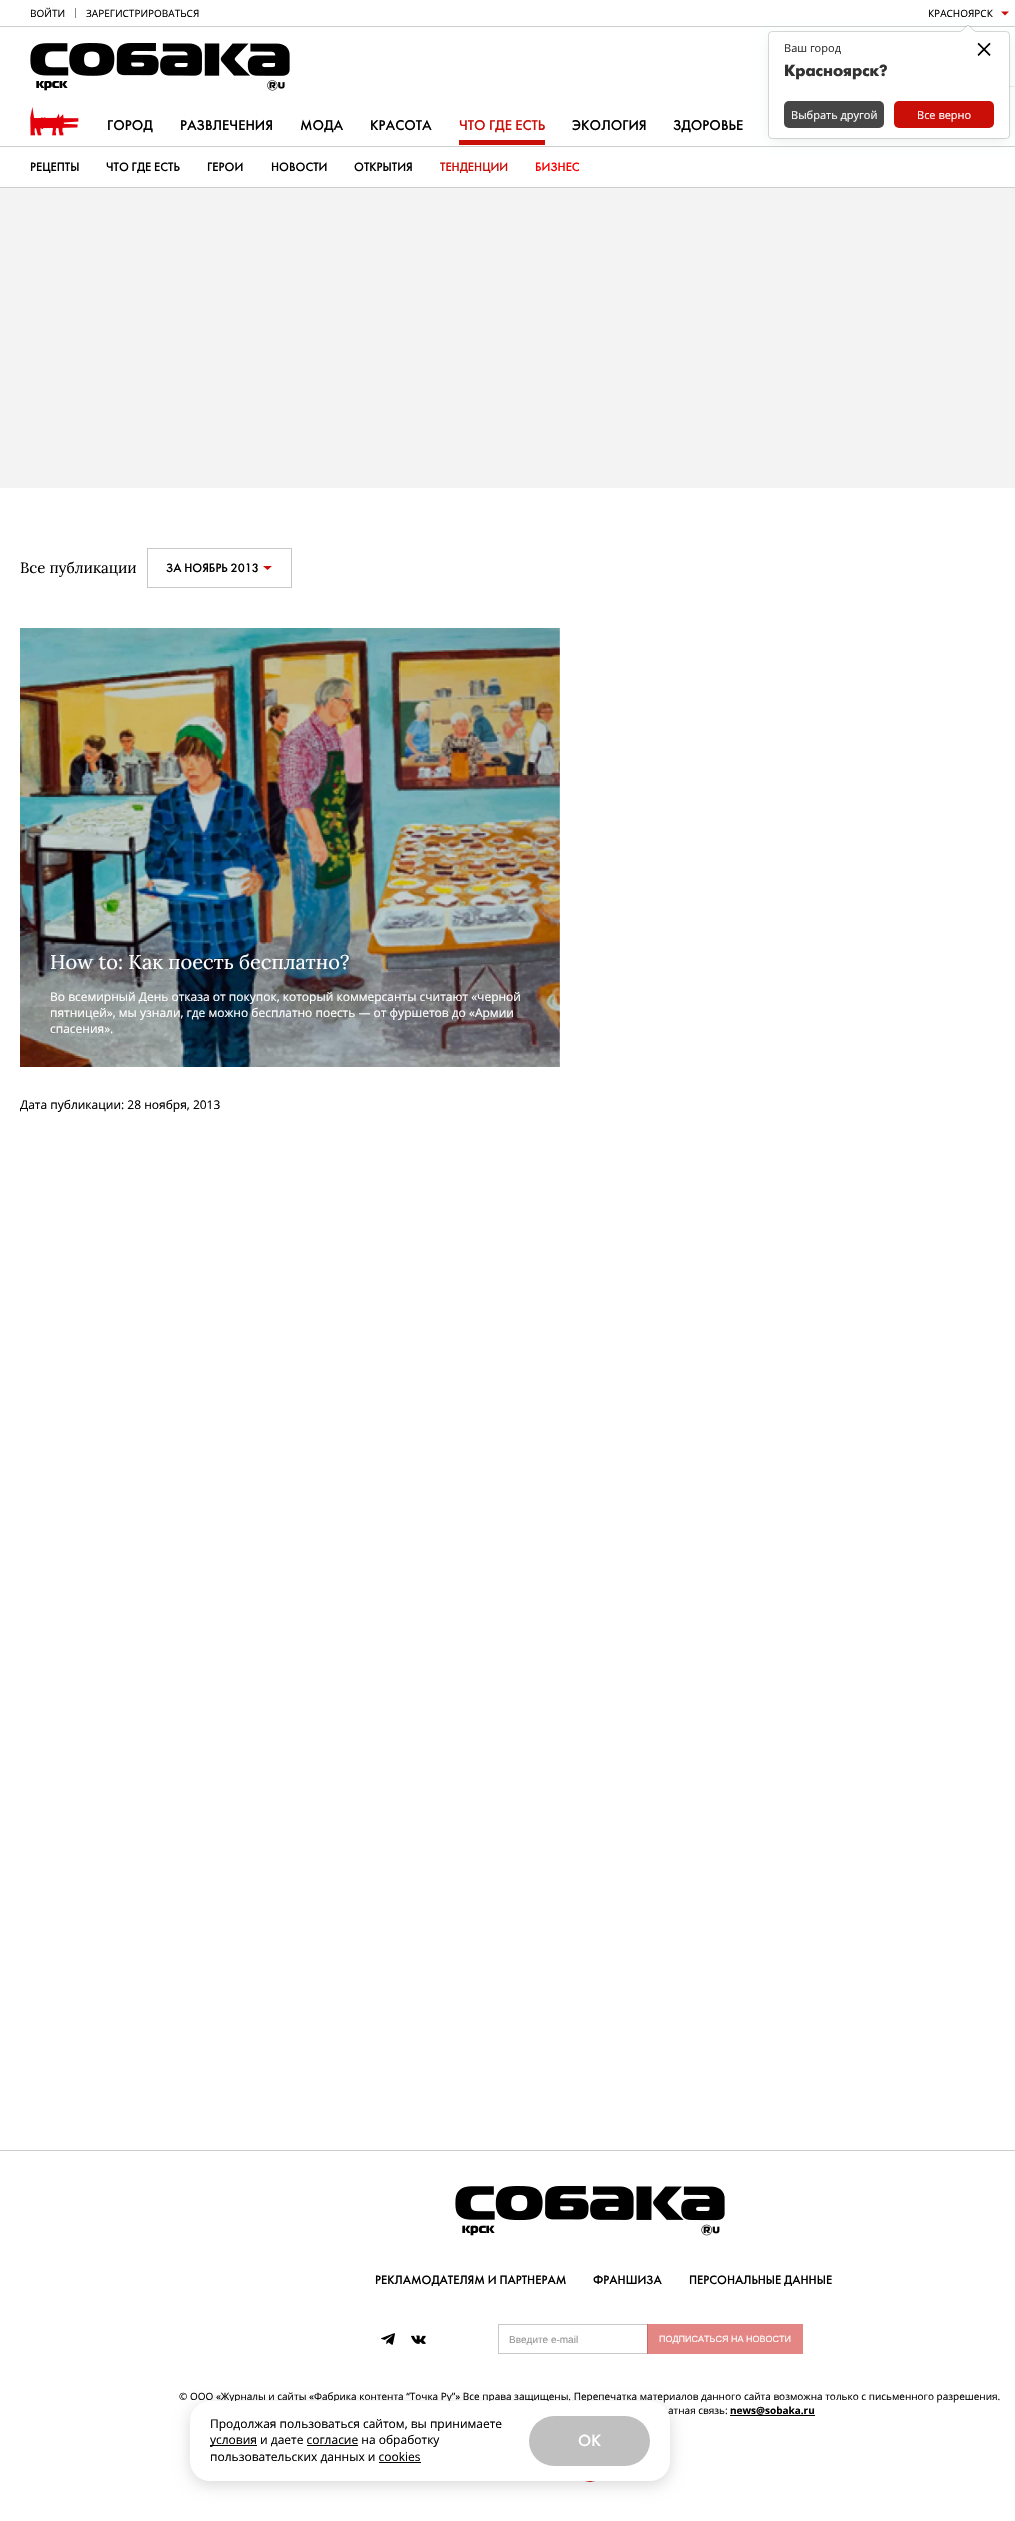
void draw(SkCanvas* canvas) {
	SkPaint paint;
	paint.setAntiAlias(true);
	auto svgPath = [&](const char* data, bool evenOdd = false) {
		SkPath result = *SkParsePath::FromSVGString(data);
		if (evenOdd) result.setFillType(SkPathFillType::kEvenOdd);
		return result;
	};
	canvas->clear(0xfff3f3f3);
	paint.setColor(0xffffffff);
	canvas->drawRect(SkRect::MakeXYWH(0, 0, 1015, 187), paint);
	paint.setColor(0xffcdcdcd);
	canvas->drawRect(SkRect::MakeXYWH(0, 26, 1015, 1), paint);
	SkFont f1(fontMgr->matchFamilyStyle("Open Sans", SkFontStyle::Normal()), 10);
	f1.setSubpixel(true);
	paint.setColor(0xff000000);
	canvas->drawString("ВОЙТИ", 30, 17, f1, paint);
	paint.setColor(0xff898989);
	canvas->drawRect(SkRect::MakeXYWH(75, 8, 1, 10), paint);
	paint.setColor(0xff000000);
	canvas->drawString("ЗАРЕГИСТРИРОВАТЬСЯ", 86, 17, f1, paint);
	canvas->drawString("КРАСНОЯРСК", 928, 17, f1, paint);
	paint.setColor(0xffca0f09);
	canvas->drawPath(svgPath("M1001 11.5H1009L1005 15.5Z"), paint);
	canvas->drawImageRect(SkImages::DeferredFromEncodedData(SkData::MakeFromFileName("img1.png")), SkRect::MakeXYWH(30, 43, 260, 48), SkSamplingOptions());
	SkFont f2(fontMgr->matchFamilyStyle("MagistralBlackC", SkFontStyle(900, SkFontStyle::kNormal_Width, SkFontStyle::kUpright_Slant)), 13);
	f2.setSubpixel(true);
	paint.setColor(0xff000000);
	canvas->drawString("крск", 36, 88, f2, paint);
	paint.setColor(0xffebebeb);
	canvas->drawRect(SkRect::MakeXYWH(1009, 86, 6, 1), paint);
	paint.setColor(0xffcdcdcd);
	canvas->drawRect(SkRect::MakeXYWH(0, 146, 1015, 1), paint);
	canvas->drawImageRect(SkImages::DeferredFromEncodedData(SkData::MakeFromFileName("img2.png")), SkRect::MakeXYWH(30, 107, 49, 29), SkSamplingOptions());
	SkFont f3(fontMgr->matchFamilyStyle("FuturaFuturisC", SkFontStyle::Normal()), 14);
	f3.setSubpixel(true);
	paint.setColor(0xff000000);
	canvas->drawString("ГОРОД", 107, 130, f3, paint);
	canvas->drawString("РАЗВЛЕЧЕНИЯ", 180, 130, f3, paint);
	canvas->drawString("МОДА", 300, 130, f3, paint);
	canvas->drawString("КРАСОТА", 370, 130, f3, paint);
	paint.setColor(0xffca0f09);
	canvas->drawString("ЧТО ГДЕ ЕСТЬ", 459, 130, f3, paint);
	canvas->drawRect(SkRect::MakeXYWH(459, 140, 86, 5), paint);
	paint.setColor(0xff000000);
	canvas->drawString("ЭКОЛОГИЯ", 572, 130, f3, paint);
	canvas->drawString("ЗДОРОВЬЕ", 673, 130, f3, paint);
	paint.setColor(0xffcdcdcd);
	canvas->drawRect(SkRect::MakeXYWH(0, 187, 1015, 1), paint);
	SkFont f4(fontMgr->matchFamilyStyle("FuturaFuturisC", SkFontStyle::Normal()), 12);
	f4.setSubpixel(true);
	paint.setColor(0xff000000);
	canvas->drawString("РЕЦЕПТЫ", 30, 171, f4, paint);
	canvas->drawString("ЧТО ГДЕ ЕСТЬ", 106, 171, f4, paint);
	canvas->drawString("ГЕРОИ", 207, 171, f4, paint);
	canvas->drawString("НОВОСТИ", 271, 171, f4, paint);
	canvas->drawString("ОТКРЫТИЯ", 354, 171, f4, paint);
	paint.setColor(0xffca0f09);
	canvas->drawString("ТЕНДЕНЦИИ", 440, 171, f4, paint);
	paint.setColor(0xffff0000);
	canvas->drawString("БИЗНЕС", 535, 171, f4, paint);
	paint.setColor(0xffffffff);
	canvas->drawRect(SkRect::MakeXYWH(0, 488, 1015, 1662), paint);
	SkFont f5(fontMgr->matchFamilyStyle("Lora", SkFontStyle::Normal()), 15);
	f5.setSubpixel(true);
	paint.setColor(0xff000000);
	canvas->drawString("Все публикации", 20, 573, f5, paint);
	paint.setStroke(true);
	paint.setStrokeWidth(1);
	paint.setColor(0xffc8c8c8);
	canvas->drawRect(SkRect::MakeXYWH(147.5, 548.5, 144, 39), paint);
	paint.setStroke(false);
	paint.setColor(0xff000000);
	canvas->drawString("ЗА НОЯБРЬ 2013", 166, 572, f4, paint);
	paint.setColor(0xffca0f09);
	canvas->drawPath(svgPath("M272 566L267.5 570L263 566Z", true), paint);
	canvas->drawImageRect(SkImages::DeferredFromEncodedData(SkData::MakeFromFileName("img3.png")), SkRect::MakeXYWH(20, 628, 540, 439), SkSamplingOptions());
	SkFont f6(fontMgr->matchFamilyStyle("Lora", SkFontStyle::Normal()), 20);
	f6.setSubpixel(true);
	paint.setColor(0xffffffff);
	canvas->drawString("How to: Как поесть бесплатно?", 50, 969, f6, paint);
	SkFont f7(fontMgr->matchFamilyStyle("Open Sans", SkFontStyle::Normal()), 12);
	f7.setSubpixel(true);
	canvas->drawString("Во всемирный День отказа от покупок, который коммерсанты считают «черной", 50, 1001, f7, paint);
	canvas->drawString("пятницей», мы узнали, где можно бесплатно поесть — от фуршетов до «Армии", 50, 1017, f7, paint);
	canvas->drawString("спасения».", 50, 1033, f7, paint);
	paint.setColor(0xff000000);
	canvas->drawString("Дата публикации: 28 ноября, 2013", 20, 1109, f7, paint);
	paint.setColor(0xffffffff);
	canvas->drawRect(SkRect::MakeXYWH(0, 2151, 1015, 370), paint);
	paint.setColor(0xffcdcdcd);
	canvas->drawRect(SkRect::MakeXYWH(0, 2150, 1015, 1), paint);
	canvas->drawImageRect(SkImages::DeferredFromEncodedData(SkData::MakeFromFileName("img4.png")), SkRect::MakeXYWH(455, 2186, 270, 50), SkSamplingOptions());
	SkFont f8(fontMgr->matchFamilyStyle("MagistralBlackC", SkFontStyle(900, SkFontStyle::kNormal_Width, SkFontStyle::kUpright_Slant)), 13.5);
	f8.setSubpixel(true);
	paint.setColor(0xff000000);
	canvas->drawString("крск", 462, 2233, f8, paint);
	canvas->drawString("РЕКЛАМОДАТЕЛЯМ И ПАРТНЕРАМ", 375, 2284, f4, paint);
	canvas->drawString("ФРАНШИЗА", 593, 2284, f4, paint);
	canvas->drawString("ПЕРСОНАЛЬНЫЕ ДАННЫЕ", 689, 2284, f4, paint);
	canvas->drawImageRect(SkImages::DeferredFromEncodedData(SkData::MakeFromFileName("img5.png")), SkRect::MakeXYWH(381, 2333, 14, 12), SkSamplingOptions());
	canvas->drawImageRect(SkImages::DeferredFromEncodedData(SkData::MakeFromFileName("img6.png")), SkRect::MakeXYWH(411, 2335, 15, 9), SkSamplingOptions());
	paint.setStroke(true);
	paint.setColor(0xffc8c8c8);
	canvas->drawRect(SkRect::MakeXYWH(498.5, 2324.5, 149, 29), paint);
	SkFont f9(fontMgr->matchFamilyStyle("Liberation Sans", SkFontStyle::Normal()), 10);
	f9.setSubpixel(true);
	paint.setStroke(false);
	paint.setColor(0xff959595);
	canvas->drawString("Введите e-mail", 509, 2343, f9, paint);
	paint.setColor(0x80ca0f09);
	canvas->drawRect(SkRect::MakeXYWH(647, 2324, 156, 30), paint);
	SkFont f10(fontMgr->matchFamilyStyle("Liberation Sans", SkFontStyle::Normal()), 9);
	f10.setSubpixel(true);
	paint.setColor(0xffffffff);
	canvas->drawString("ПОДПИСАТЬСЯ НА НОВОСТИ", 659, 2342, f10, paint);
	paint.setColor(0xff000000);
	canvas->drawString("© ООО «Журналы и сайты «Фабрика контента “Точка Ру”» Все права защищены. Перепечатка материалов данного сайта возможна только с письменного разрешения.", 179, 2400, f1, paint);
	canvas->drawString("атная связь:", 668, 2414, f1, paint);
	SkFont f11(fontMgr->matchFamilyStyle("Open Sans", SkFontStyle::Bold()), 10);
	f11.setSubpixel(true);
	canvas->drawString("news@sobaka.ru", 730, 2414, f11, paint);
	canvas->drawRect(SkRect::MakeXYWH(730, 2415, 85, 1), paint);
	paint.setStroke(true);
	paint.setColor(0xffca0f09);
	canvas->drawCircle(590, 2467, 14.5, paint);
	paint.setStroke(false);
	paint.setColor(0x14000810);
	paint.setMaskFilter(SkMaskFilter::MakeBlur(kNormal_SkBlurStyle, 7));
	canvas->drawRoundRect(SkRect::MakeXYWH(770, 37, 238, 104), 2, 2, paint);
	paint.setMaskFilter(nullptr);
	paint.setColor(0xffffffff);
	canvas->drawRoundRect(SkRect::MakeXYWH(769, 32, 240, 106), 3, 3, paint);
	paint.setStroke(true);
	paint.setColor(0x26000810);
	canvas->drawRoundRect(SkRect::MakeXYWH(768.5, 31.5, 241, 107), 3.5, 3.5, paint);
	canvas->drawImageRect(SkImages::DeferredFromEncodedData(SkData::MakeFromFileName("img7.png")), SkRect::MakeXYWH(960, 25, 16, 6), SkSamplingOptions());
	canvas->drawImageRect(SkImages::DeferredFromEncodedData(SkData::MakeFromFileName("img8.png")), SkRect::MakeXYWH(960, 26, 16, 6), SkSamplingOptions());
	SkFont f12(fontMgr->matchFamilyStyle("Open Sans", SkFontStyle::Normal()), 11);
	f12.setSubpixel(true);
	paint.setStroke(false);
	paint.setColor(0xff333333);
	canvas->drawString("Ваш город", 784, 52, f12, paint);
	SkFont f13(fontMgr->matchFamilyStyle("Liberation Serif", SkFontStyle::Normal()), 32);
	f13.setSubpixel(true);
	paint.setColor(0xff000000);
	canvas->drawString("×", 975, 60, f13, paint);
	SkFont f14(fontMgr->matchFamilyStyle("FuturaFuturisC", SkFontStyle::Bold()), 16);
	f14.setSubpixel(true);
	paint.setColor(0xff333333);
	canvas->drawString("Красноярск?", 784, 76, f14, paint);
	paint.setColor(0xff464646);
	canvas->drawRoundRect(SkRect::MakeXYWH(784, 101, 100, 27), 5, 5, paint);
	paint.setColor(0xffffffff);
	canvas->drawString("Выбрать другой", 791, 119, f12, paint);
	paint.setColor(0xffca0f09);
	canvas->drawRoundRect(SkRect::MakeXYWH(894, 101, 100, 27), 5, 5, paint);
	paint.setColor(0xffffffff);
	canvas->drawString("Все верно", 917, 119, f12, paint);
	paint.setColor(0x26000000);
	paint.setMaskFilter(SkMaskFilter::MakeBlur(kNormal_SkBlurStyle, 7.5));
	canvas->drawRoundRect(SkRect::MakeXYWH(190, 2405, 480, 80), 20, 20, paint);
	paint.setMaskFilter(nullptr);
	paint.setColor(0xffffffff);
	canvas->drawRoundRect(SkRect::MakeXYWH(190, 2401, 480, 80), 20, 20, paint);
	paint.setColor(0xff000000);
	canvas->drawString("Продолжая пользоваться сайтом, вы принимаете", 210, 2428, f7, paint);
	canvas->drawRect(SkRect::MakeXYWH(210, 2445, 47, 1), paint);
	canvas->drawString("условия и даете согласие на обработку", 210, 2444, f7, paint);
	canvas->drawRect(SkRect::MakeXYWH(307, 2445, 51, 1), paint);
	canvas->drawString("пользовательских данных и cookies", 210, 2461, f7, paint);
	canvas->drawRect(SkRect::MakeXYWH(379, 2462, 42, 1), paint);
	paint.setColor(0xffc0c0c0);
	canvas->drawRoundRect(SkRect::MakeXYWH(529, 2416, 121, 50), 25, 25, paint);
	SkFont f15(fontMgr->matchFamilyStyle("FuturaFuturisC", SkFontStyle::Normal()), 16);
	f15.setSubpixel(true);
	paint.setColor(0xffffffff);
	canvas->drawString("OK", 578, 2446, f15, paint);
}
